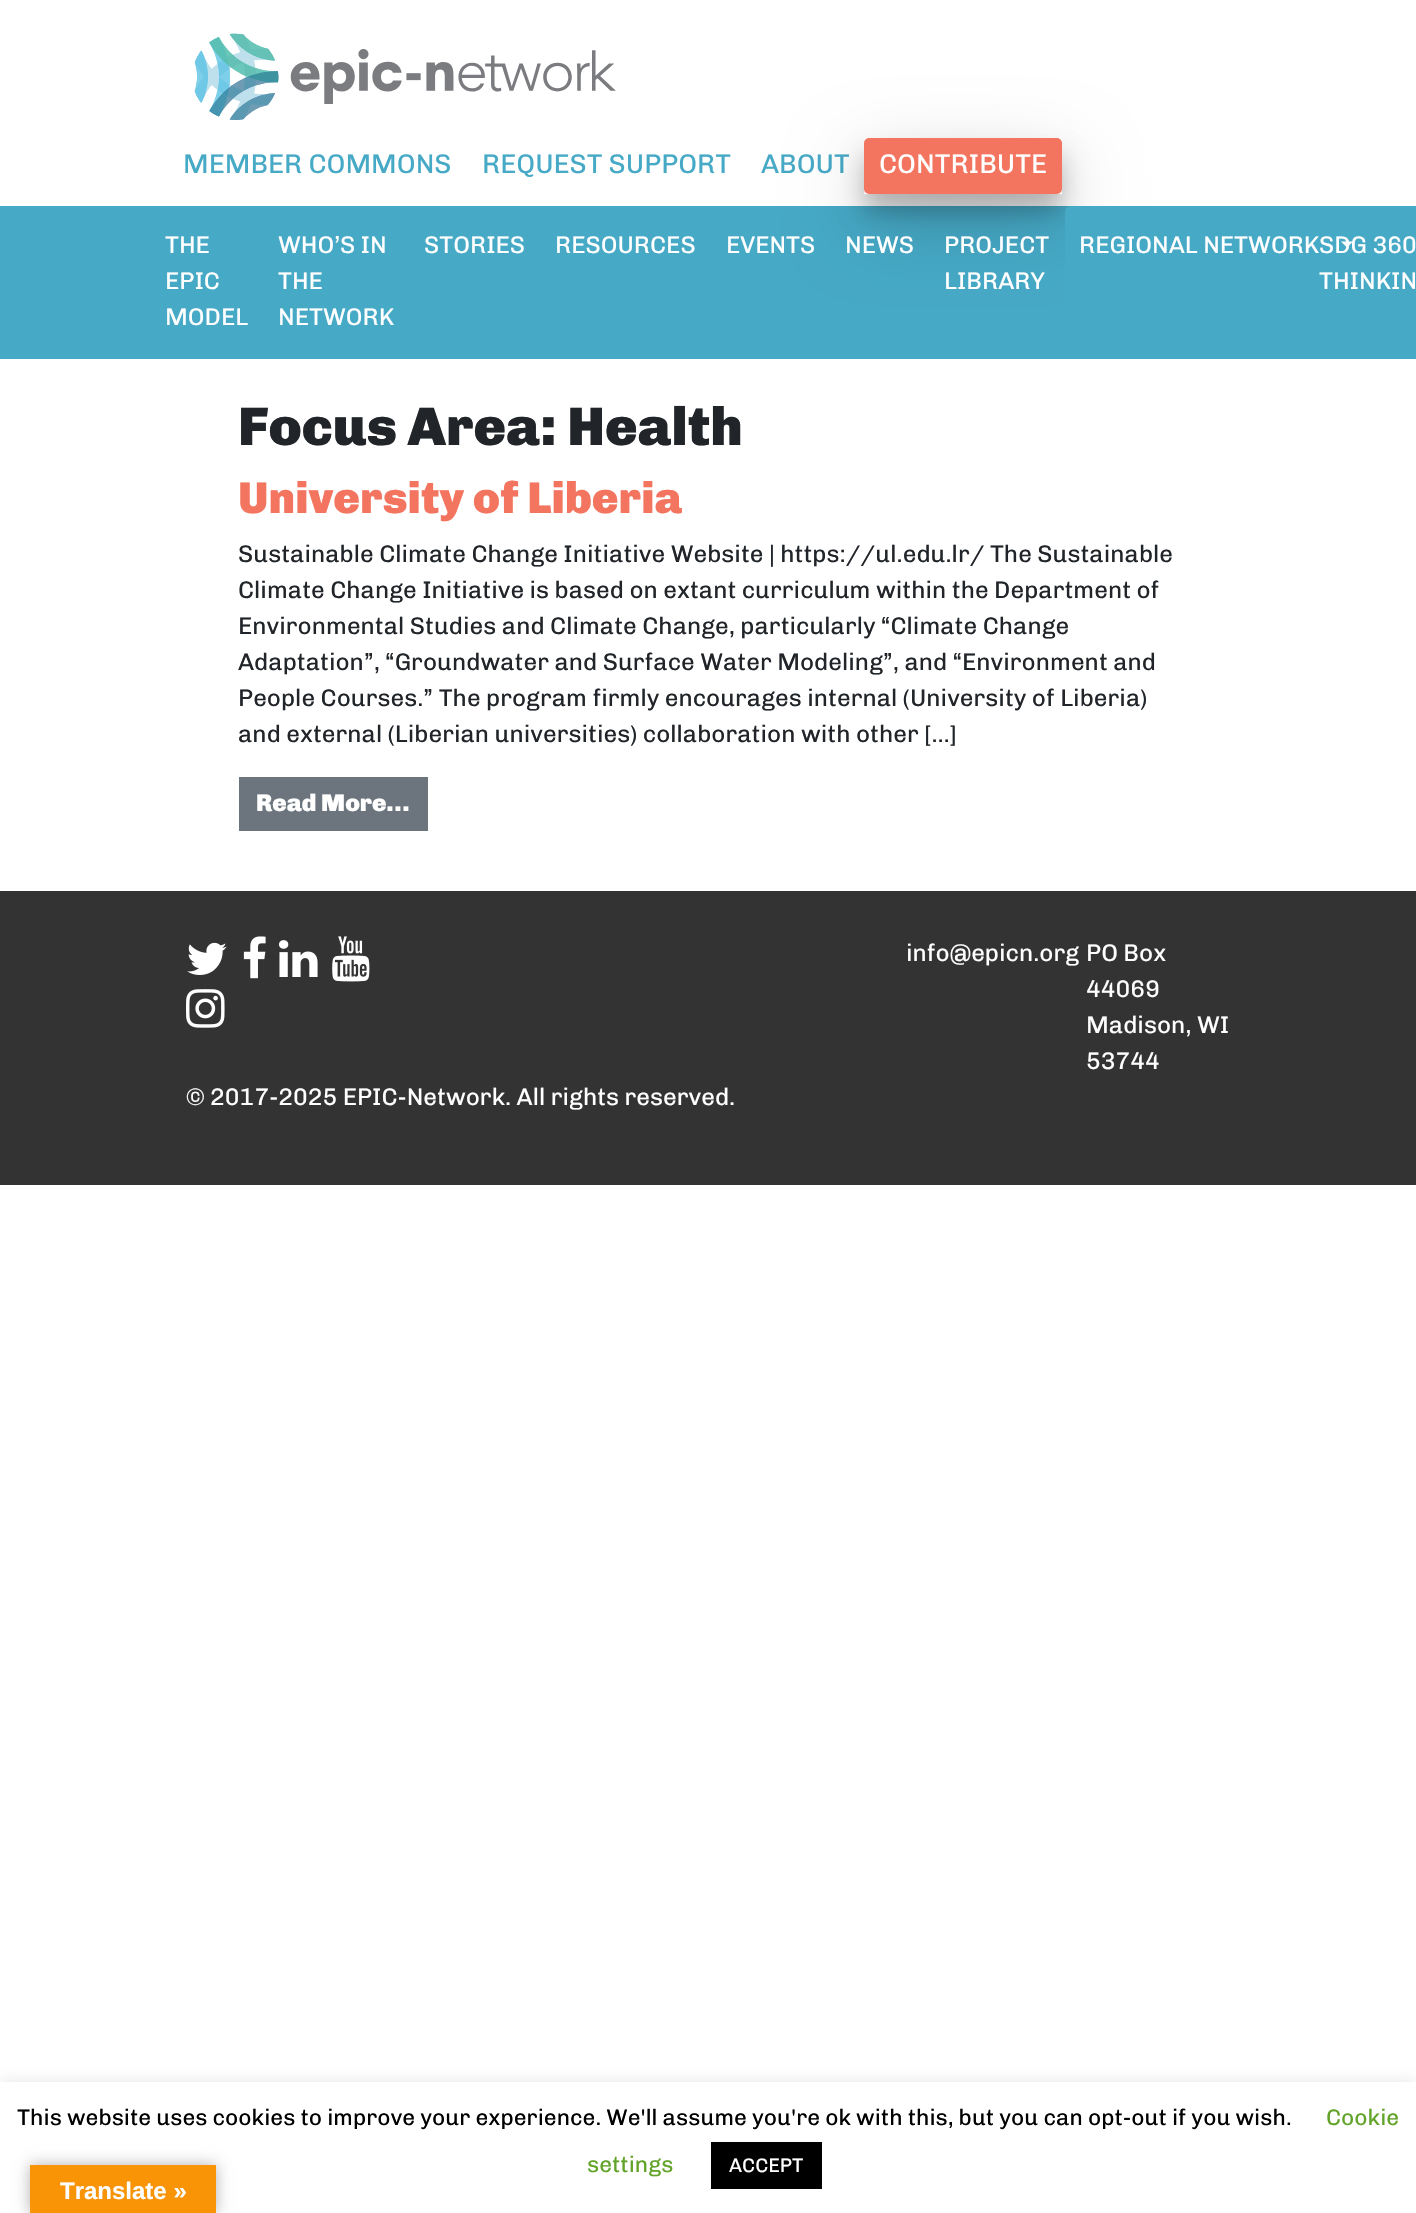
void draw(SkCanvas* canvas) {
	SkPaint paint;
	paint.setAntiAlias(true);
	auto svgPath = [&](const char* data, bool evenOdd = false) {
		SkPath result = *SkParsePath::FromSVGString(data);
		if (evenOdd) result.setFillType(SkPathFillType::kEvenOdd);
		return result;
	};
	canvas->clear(0xffffffff);
	canvas->drawImageRect(SkImages::DeferredFromEncodedData(SkData::MakeFromFileName("img1.png")), SkRect::MakeXYWH(194, 33, 422, 87), SkSamplingOptions());
	SkFont f1(fontMgr->matchFamilyStyle("Chivo", SkFontStyle::Normal()), 27);
	f1.setSubpixel(true);
	paint.setColor(0xff46a9c6);
	canvas->drawString("MEMBER COMMONS", 183, 173, f1, paint);
	canvas->drawString("REQUEST SUPPORT", 482, 173, f1, paint);
	canvas->drawString("ABOUT", 761, 173, f1, paint);
	paint.setColor(0xfff37560);
	canvas->drawRoundRect(SkRect::MakeXYWH(864, 138, 198, 56), 5, 5, paint);
	paint.setColor(0xff46a9c6);
	canvas->drawRect(SkRect::MakeXYWH(0, 206, 1416, 153), paint);
	canvas->save();
	canvas->clipPath(svgPath("M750 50H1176V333H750ZM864 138H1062V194H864Z", true), true);
	paint.setColor(0x30000000);
	paint.setMaskFilter(SkMaskFilter::MakeBlur(kNormal_SkBlurStyle, 37.5));
	canvas->drawRect(SkRect::MakeXYWH(864, 164, 198, 55), paint);
	paint.setMaskFilter(nullptr);
	canvas->restore();
	canvas->save();
	canvas->clipPath(svgPath("M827 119H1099V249H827ZM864 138H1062V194H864Z", true), true);
	paint.setColor(0x3d000000);
	paint.setMaskFilter(SkMaskFilter::MakeBlur(kNormal_SkBlurStyle, 12));
	canvas->drawRect(SkRect::MakeXYWH(864, 156, 198, 56), paint);
	paint.setMaskFilter(nullptr);
	canvas->restore();
	paint.setColor(0xffffffff);
	canvas->drawString("CONTRIBUTE", 879, 173, f1, paint);
	SkFont f2(fontMgr->matchFamilyStyle("Chivo", SkFontStyle::Normal()), 24);
	f2.setSubpixel(true);
	canvas->drawString("THE", 165, 253, f2, paint);
	canvas->drawString("EPIC", 165, 289, f2, paint);
	canvas->drawString("MODEL", 165, 325, f2, paint);
	canvas->drawString("WHO’S IN", 278, 253, f2, paint);
	canvas->drawString("THE", 278, 289, f2, paint);
	canvas->drawString("NETWORK", 278, 325, f2, paint);
	canvas->drawString("STORIES", 424, 253, f2, paint);
	canvas->drawString("RESOURCES", 555, 253, f2, paint);
	canvas->drawString("EVENTS", 726, 253, f2, paint);
	canvas->drawString("NEWS", 845, 253, f2, paint);
	canvas->drawString("PROJECT", 944, 253, f2, paint);
	canvas->drawString("LIBRARY", 944, 289, f2, paint);
	paint.setColor(0xff46a9c6);
	canvas->drawRoundRect(SkRect::MakeXYWH(1065, 206, 240, 153), 6, 6, paint);
	paint.setColor(0xffffffff);
	canvas->drawString("REGIONAL NETWORK", 1079, 253, f2, paint);
	canvas->drawPath(svgPath("M1341 241.5H1353L1347 247.5Z"), paint);
	canvas->drawString("SDG 360", 1319, 253, f2, paint);
	canvas->drawString("THINKIN", 1319, 289, f2, paint);
	SkFont f3(fontMgr->matchFamilyStyle("Chivo", SkFontStyle(900, SkFontStyle::kNormal_Width, SkFontStyle::kUpright_Slant)), 54.25);
	f3.setSubpixel(true);
	paint.setColor(0xff212529);
	canvas->drawString("Focus Area: Health", 238, 445, f3, paint);
	SkFont f4(fontMgr->matchFamilyStyle("Chivo", SkFontStyle(900, SkFontStyle::kNormal_Width, SkFontStyle::kUpright_Slant)), 44.5);
	f4.setSubpixel(true);
	paint.setColor(0xfff37560);
	canvas->drawString("University of Liberia", 238, 513, f4, paint);
	paint.setColor(0xff212529);
	canvas->drawString("Sustainable Climate Change Initiative Website | https://ul.edu.lr/ The Sustainable", 238, 562, f2, paint);
	canvas->drawString("Climate Change Initiative is based on extant curriculum within the Department of", 238, 598, f2, paint);
	canvas->drawString("Environmental Studies and Climate Change, particularly “Climate Change", 238, 634, f2, paint);
	canvas->drawString("Adaptation”, “Groundwater and Surface Water Modeling”, and “Environment and", 238, 670, f2, paint);
	canvas->drawString("People Courses.” The program firmly encourages internal (University of Liberia)", 238, 706, f2, paint);
	canvas->drawString("and external (Liberian universities) collaboration with other […]", 238, 742, f2, paint);
	paint.setColor(0xff6c757d);
	canvas->drawRect(SkRect::MakeXYWH(239, 777, 189, 54), paint);
	SkFont f5(fontMgr->matchFamilyStyle("Chivo", SkFontStyle(900, SkFontStyle::kNormal_Width, SkFontStyle::kUpright_Slant)), 24);
	f5.setSubpixel(true);
	paint.setColor(0xffffffff);
	canvas->drawString("Read More…", 256, 811, f5, paint);
	paint.setColor(0xff333333);
	canvas->drawRect(SkRect::MakeXYWH(0, 891, 1416, 294), paint);
	canvas->drawImageRect(SkImages::DeferredFromEncodedData(SkData::MakeFromFileName("img2.png")), SkRect::MakeXYWH(187, 942, 40, 33), SkSamplingOptions());
	canvas->drawImageRect(SkImages::DeferredFromEncodedData(SkData::MakeFromFileName("img3.png")), SkRect::MakeXYWH(243, 936, 23, 43), SkSamplingOptions());
	canvas->drawImageRect(SkImages::DeferredFromEncodedData(SkData::MakeFromFileName("img4.png")), SkRect::MakeXYWH(279, 940, 39, 37), SkSamplingOptions());
	canvas->drawImageRect(SkImages::DeferredFromEncodedData(SkData::MakeFromFileName("img5.png")), SkRect::MakeXYWH(332, 936, 38, 46), SkSamplingOptions());
	canvas->drawImageRect(SkImages::DeferredFromEncodedData(SkData::MakeFromFileName("img6.png")), SkRect::MakeXYWH(186, 989, 39, 39), SkSamplingOptions());
	paint.setColor(0xffffffff);
	canvas->drawString("info@epicn.org", 906, 961, f2, paint);
	canvas->drawString("PO Box", 1086, 961, f2, paint);
	canvas->drawString("44069", 1086, 997, f2, paint);
	canvas->drawString("Madison, WI", 1086, 1033, f2, paint);
	canvas->drawString("53744", 1086, 1069, f2, paint);
	canvas->drawString("© 2017-2025 EPIC-Network. All rights reserved.", 186, 1105, f2, paint);
	paint.setColor(0x4dacabab);
	paint.setMaskFilter(SkMaskFilter::MakeBlur(kNormal_SkBlurStyle, 7.5));
	canvas->drawRect(SkRect::MakeXYWH(0, 2081, 1416, 132), paint);
	paint.setMaskFilter(nullptr);
	paint.setColor(0xffffffff);
	canvas->drawRect(SkRect::MakeXYWH(0, 2082, 1416, 131), paint);
	SkFont f6(fontMgr->matchFamilyStyle("Chivo", SkFontStyle::Normal()), 22.5);
	f6.setSubpixel(true);
	paint.setColor(0xff000000);
	canvas->drawString("This website uses cookies to improve your experience. We'll assume you're ok with this, but you can opt-out if you wish.", 17, 2125, f6, paint);
	paint.setColor(0xff62a329);
	canvas->drawString("Cookie", 1326, 2125, f6, paint);
	canvas->drawString("settings", 587, 2172, f6, paint);
	paint.setColor(0xff000000);
	canvas->drawRect(SkRect::MakeXYWH(711, 2142, 111, 47), paint);
	SkFont f7(fontMgr->matchFamilyStyle("Chivo", SkFontStyle::Normal()), 19.5);
	f7.setSubpixel(true);
	paint.setColor(0xffffffff);
	canvas->drawString("ACCEPT", 729, 2172, f7, paint);
	paint.setColor(0x4d000000);
	paint.setMaskFilter(SkMaskFilter::MakeBlur(kNormal_SkBlurStyle, 7));
	canvas->drawRect(SkRect::MakeXYWH(30, 2165, 186, 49), paint);
	paint.setMaskFilter(nullptr);
	paint.setColor(0xfff89406);
	canvas->drawRect(SkRect::MakeXYWH(30, 2165, 186, 48), paint);
	SkFont f8(fontMgr->matchFamilyStyle("Liberation Sans", SkFontStyle::Bold()), 24);
	f8.setSubpixel(true);
	paint.setColor(0xffffffff);
	canvas->drawString("Translate »", 60, 2199, f8, paint);
}
